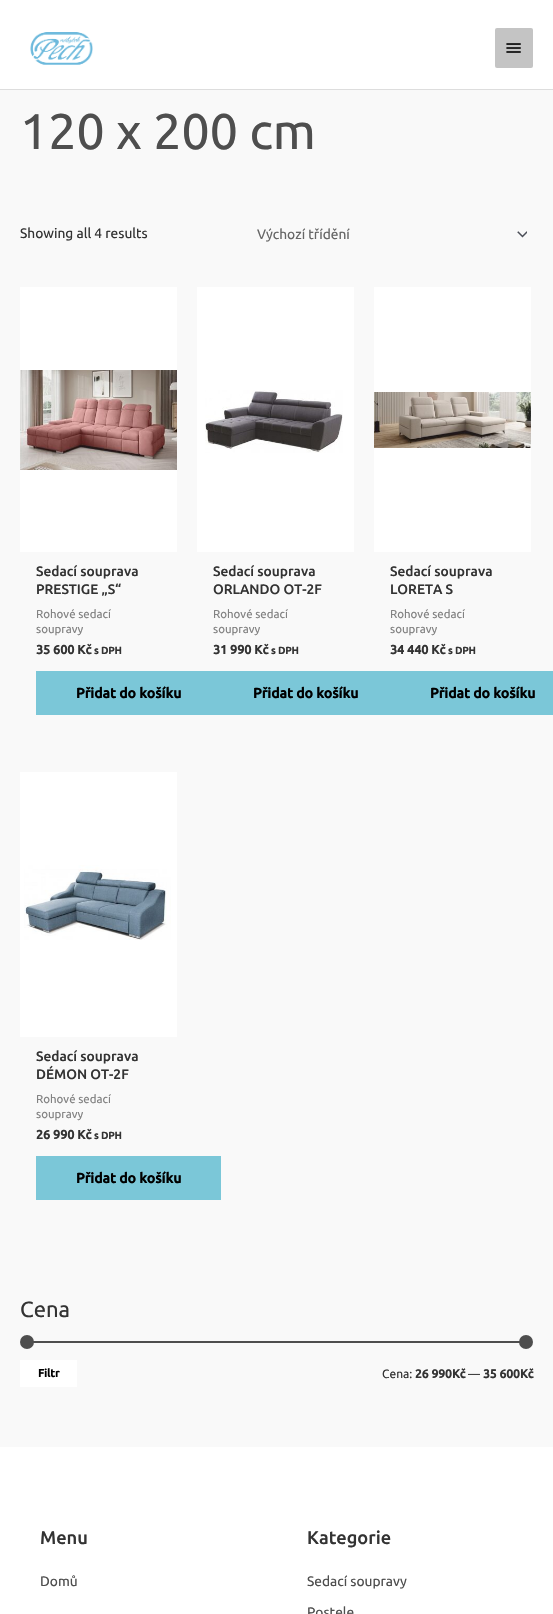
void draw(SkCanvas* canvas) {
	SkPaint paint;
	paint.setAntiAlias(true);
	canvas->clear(0xfff9f9f9);
	paint.setColor(0xffffffff);
	canvas->drawRect(SkRect::MakeXYWH(0, 0, 553, 89), paint);
	paint.setColor(0xffdddddd);
	canvas->drawRect(SkRect::MakeXYWH(0, 89, 553, 1), paint);
	canvas->drawImageRect(SkImages::DeferredFromEncodedData(SkData::MakeFromFileName("img1.png")), SkRect::MakeXYWH(30, 32, 63, 33), SkSamplingOptions());
	paint.setColor(0xffc4c4c4);
	canvas->drawRoundRect(SkRect::MakeXYWH(495, 28, 38, 40), 2, 2, paint);
	canvas->drawImageRect(SkImages::DeferredFromEncodedData(SkData::MakeFromFileName("img2.png")), SkRect::MakeXYWH(506, 43, 15, 10), SkSamplingOptions());
	SkFont f1(fontMgr->matchFamilyStyle("Ubuntu", SkFontStyle::Normal()), 50);
	f1.setSubpixel(true);
	paint.setColor(0xff4e4e4e);
	canvas->drawString("120 x 200 cm", 20, 149, f1, paint);
	SkFont f2(fontMgr->matchFamilyStyle("Ubuntu", SkFontStyle::Normal()), 13.75);
	f2.setSubpixel(true);
	paint.setColor(0xff333333);
	canvas->drawString("Showing all 4 results", 20, 238, f2, paint);
	canvas->drawImageRect(SkImages::DeferredFromEncodedData(SkData::MakeFromFileName("img3.png")), SkRect::MakeXYWH(517, 231, 10, 7), SkSamplingOptions());
	paint.setColor(0xff666666);
	canvas->drawString("Výchozí třídění", 257, 239, f2, paint);
	paint.setColor(0xffffffff);
	canvas->drawRect(SkRect::MakeXYWH(20, 287, 157, 265), paint);
	canvas->drawImageRect(SkImages::DeferredFromEncodedData(SkData::MakeFromFileName("img4.png")), SkRect::MakeXYWH(20, 370, 157, 100), SkSamplingOptions());
	SkFont f3(fontMgr->matchFamilyStyle("Ubuntu", SkFontStyle(500, SkFontStyle::kNormal_Width, SkFontStyle::kUpright_Slant)), 13.75);
	f3.setSubpixel(true);
	paint.setColor(0xff333333);
	canvas->drawString("Sedací souprava", 36, 576, f3, paint);
	canvas->drawString("PRESTIGE „S“", 36, 594, f3, paint);
	SkFont f4(fontMgr->matchFamilyStyle("Ubuntu", SkFontStyle::Normal()), 11.5);
	f4.setSubpixel(true);
	paint.setColor(0xff828282);
	canvas->drawString("Rohové sedací", 36, 618, f4, paint);
	canvas->drawString("soupravy", 36, 633, f4, paint);
	SkFont f5(fontMgr->matchFamilyStyle("Ubuntu", SkFontStyle::Bold()), 12.5);
	f5.setSubpixel(true);
	paint.setColor(0xff333333);
	canvas->drawString("35 600 Kč", 36, 654, f5, paint);
	SkFont f6(fontMgr->matchFamilyStyle("Ubuntu", SkFontStyle::Bold()), 10);
	f6.setSubpixel(true);
	canvas->drawString("s DPH", 94, 654, f6, paint);
	paint.setColor(0xff7bc7d8);
	canvas->drawRect(SkRect::MakeXYWH(36, 671, 517, 44), paint);
	SkFont f7(fontMgr->matchFamilyStyle("Ubuntu", SkFontStyle::Bold()), 14);
	f7.setSubpixel(true);
	paint.setColor(0xff000000);
	canvas->drawString("Přidat do košíku", 76, 698, f7, paint);
	paint.setColor(0xffffffff);
	canvas->drawRect(SkRect::MakeXYWH(197, 287, 157, 265), paint);
	canvas->drawImageRect(SkImages::DeferredFromEncodedData(SkData::MakeFromFileName("img5.png")), SkRect::MakeXYWH(205, 390, 138, 63), SkSamplingOptions());
	paint.setColor(0xff333333);
	canvas->drawString("Sedací souprava", 213, 576, f3, paint);
	canvas->drawString("ORLANDO OT-2F", 213, 594, f3, paint);
	paint.setColor(0xff828282);
	canvas->drawString("Rohové sedací", 213, 618, f4, paint);
	canvas->drawString("soupravy", 213, 633, f4, paint);
	paint.setColor(0xff333333);
	canvas->drawString("31 990 Kč", 213, 654, f5, paint);
	canvas->drawString("s DPH", 271, 654, f6, paint);
	paint.setColor(0xff000000);
	canvas->drawString("Přidat do košíku", 253, 698, f7, paint);
	paint.setColor(0xffffffff);
	canvas->drawRect(SkRect::MakeXYWH(374, 287, 157, 265), paint);
	canvas->drawImageRect(SkImages::DeferredFromEncodedData(SkData::MakeFromFileName("img6.png")), SkRect::MakeXYWH(374, 392, 157, 56), SkSamplingOptions());
	paint.setColor(0xff333333);
	canvas->drawString("Sedací souprava", 390, 576, f3, paint);
	canvas->drawString("LORETA S", 390, 594, f3, paint);
	paint.setColor(0xff828282);
	canvas->drawString("Rohové sedací", 390, 618, f4, paint);
	canvas->drawString("soupravy", 390, 633, f4, paint);
	paint.setColor(0xff333333);
	canvas->drawString("34 440 Kč", 390, 654, f5, paint);
	canvas->drawString("s DPH", 448, 654, f6, paint);
	paint.setColor(0xff000000);
	canvas->drawString("Přidat do košíku", 430, 698, f7, paint);
	paint.setColor(0xffffffff);
	canvas->drawRect(SkRect::MakeXYWH(20, 772, 157, 265), paint);
	canvas->drawImageRect(SkImages::DeferredFromEncodedData(SkData::MakeFromFileName("img7.png")), SkRect::MakeXYWH(24, 865, 147, 75), SkSamplingOptions());
	paint.setColor(0xff333333);
	canvas->drawString("Sedací souprava", 36, 1061, f3, paint);
	canvas->drawString("DÉMON OT-2F", 36, 1079, f3, paint);
	paint.setColor(0xff828282);
	canvas->drawString("Rohové sedací", 36, 1103, f4, paint);
	canvas->drawString("soupravy", 36, 1118, f4, paint);
	paint.setColor(0xff333333);
	canvas->drawString("26 990 Kč", 36, 1139, f5, paint);
	canvas->drawString("s DPH", 94, 1139, f6, paint);
	paint.setColor(0xff7bc7d8);
	canvas->drawRect(SkRect::MakeXYWH(36, 1156, 185, 44), paint);
	paint.setColor(0xff000000);
	canvas->drawString("Přidat do košíku", 76, 1183, f7, paint);
	SkFont f8(fontMgr->matchFamilyStyle("Ubuntu", SkFontStyle::Normal()), 22);
	f8.setSubpixel(true);
	paint.setColor(0xff333333);
	canvas->drawString("Cena", 20, 1317, f8, paint);
	paint.setColor(0xff4e4e4e);
	canvas->drawRect(SkRect::MakeXYWH(27, 1341, 499, 2), paint);
	canvas->drawCircle(27, 1342, 7, paint);
	canvas->drawCircle(526, 1342, 7, paint);
	paint.setColor(0xffffffff);
	canvas->drawRect(SkRect::MakeXYWH(20, 1360, 57, 27), paint);
	SkFont f9(fontMgr->matchFamilyStyle("Ubuntu", SkFontStyle::Bold()), 11);
	f9.setSubpixel(true);
	paint.setColor(0xff000000);
	canvas->drawString("Filtr", 38, 1377, f9, paint);
	SkFont f10(fontMgr->matchFamilyStyle("Ubuntu", SkFontStyle::Normal()), 12);
	f10.setSubpixel(true);
	paint.setColor(0xff333333);
	canvas->drawString("Cena:", 382, 1378, f10, paint);
	SkFont f11(fontMgr->matchFamilyStyle("Ubuntu", SkFontStyle::Bold()), 12);
	f11.setSubpixel(true);
	canvas->drawString("26 990Kč", 415, 1378, f11, paint);
	canvas->drawString("—", 468, 1378, f10, paint);
	canvas->drawString("35 600Kč", 483, 1378, f11, paint);
	paint.setColor(0xffffffff);
	canvas->drawRect(SkRect::MakeXYWH(0, 1447, 553, 167), paint);
	SkFont f12(fontMgr->matchFamilyStyle("Ubuntu", SkFontStyle(500, SkFontStyle::kNormal_Width, SkFontStyle::kUpright_Slant)), 18.25);
	f12.setSubpixel(true);
	paint.setColor(0xff333333);
	canvas->drawString("Menu", 40, 1544, f12, paint);
	paint.setColor(0xff4e4e4e);
	canvas->drawString("Domů", 40, 1586, f2, paint);
	paint.setColor(0xff333333);
	canvas->drawString("Kategorie", 307, 1544, f12, paint);
	paint.setColor(0xff4e4e4e);
	canvas->drawString("Sedací soupravy", 307, 1586, f2, paint);
	canvas->drawString("Postele", 307, 1617, f2, paint);
}
